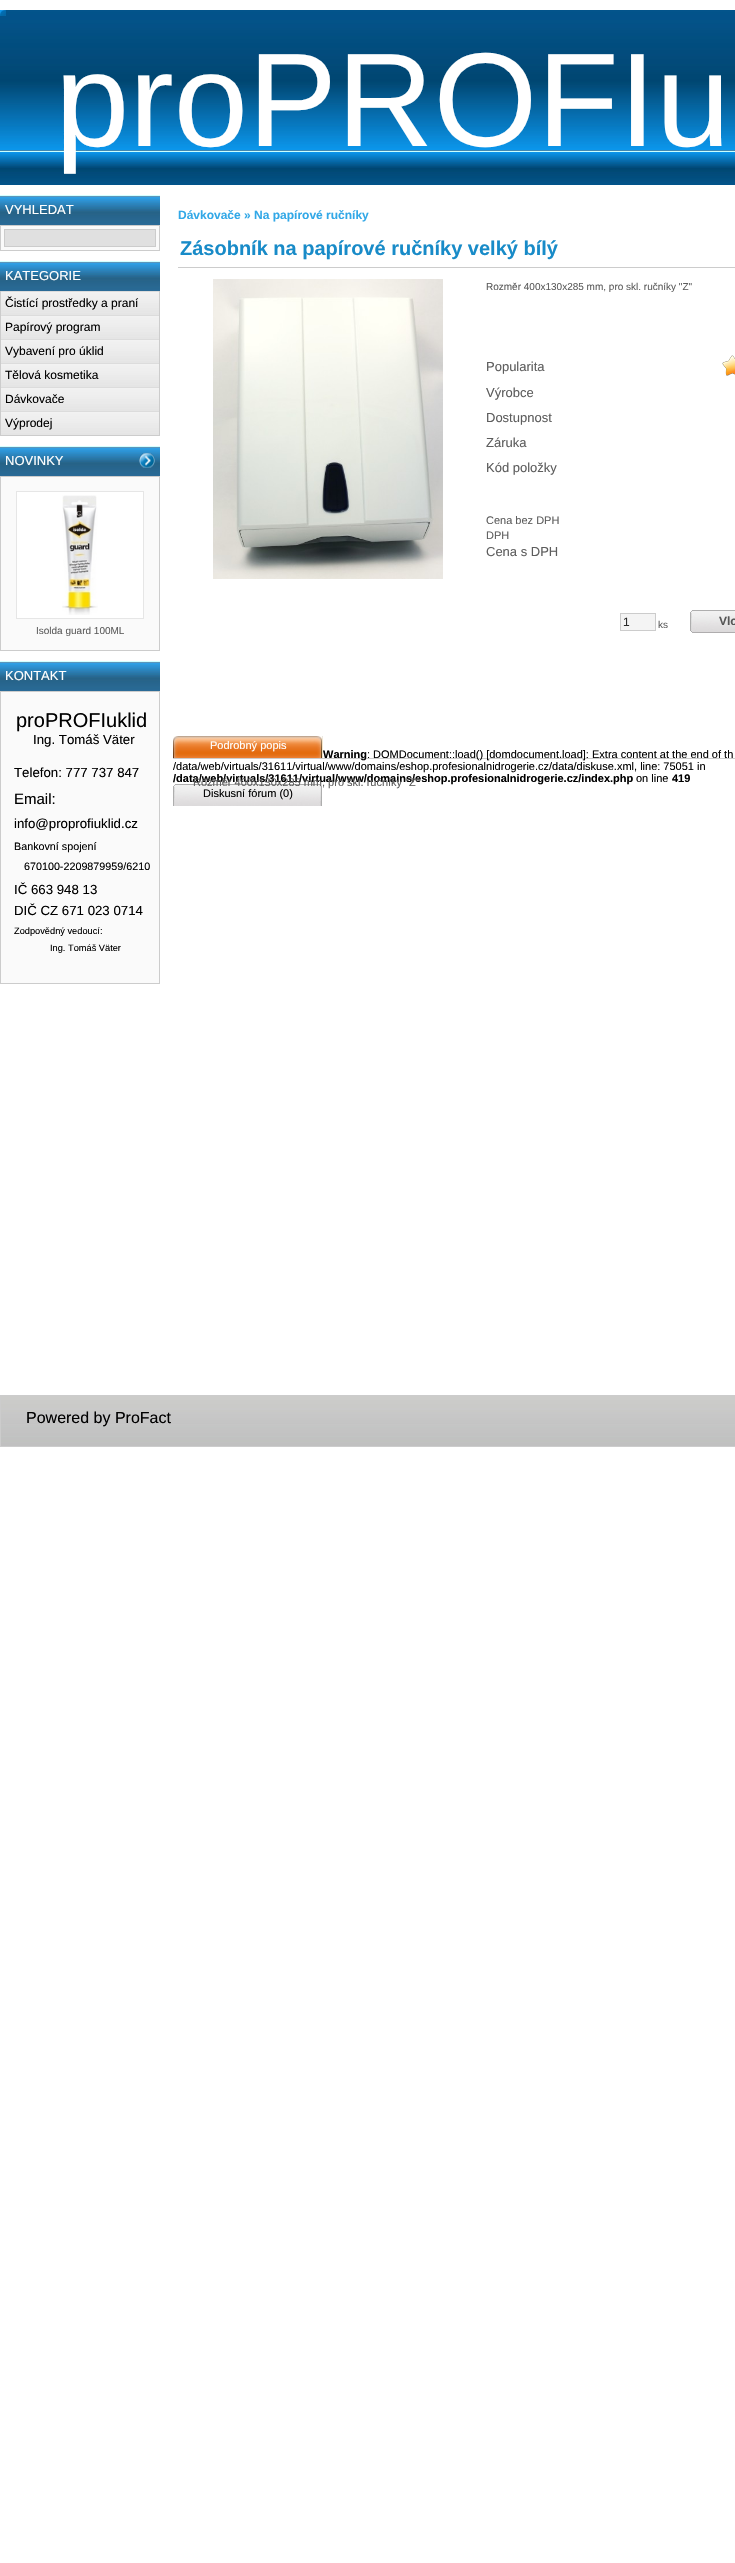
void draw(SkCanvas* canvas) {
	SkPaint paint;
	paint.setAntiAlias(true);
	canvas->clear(0xffffffff);
	canvas->drawImageRect(SkImages::DeferredFromEncodedData(SkData::MakeFromFileName("img1.png")), SkRect::MakeXYWH(0, 10, 735, 175), SkSamplingOptions());
	canvas->drawImageRect(SkImages::DeferredFromEncodedData(SkData::MakeFromFileName("img2.png")), SkRect::MakeXYWH(0, 10, 6, 6), SkSamplingOptions());
	SkFont f1(fontMgr->matchFamilyStyle("Liberation Sans", SkFontStyle::Normal()), 133.5);
	f1.setSubpixel(true);
	paint.setColor(0xffffffff);
	canvas->drawString("proPROFIu", 55, 146, f1, paint);
	canvas->drawImageRect(SkImages::DeferredFromEncodedData(SkData::MakeFromFileName("img3.png")), SkRect::MakeXYWH(0, 195, 160, 30), SkSamplingOptions());
	SkFont f2(fontMgr->matchFamilyStyle("Liberation Sans", SkFontStyle::Normal()), 13);
	f2.setSubpixel(true);
	canvas->drawString("VYHLEDAT", 5, 214, f2, paint);
	paint.setColor(0xfffafafa);
	canvas->drawRect(SkRect::MakeXYWH(1, 226, 158, 24), paint);
	paint.setColor(0xffcccccc);
	canvas->drawRect(SkRect::MakeXYWH(0, 225, 160, 1), paint);
	canvas->drawRect(SkRect::MakeXYWH(159, 225, 1, 26), paint);
	canvas->drawRect(SkRect::MakeXYWH(0, 250, 160, 1), paint);
	canvas->drawRect(SkRect::MakeXYWH(0, 225, 1, 26), paint);
	paint.setColor(0xffe0e0e0);
	canvas->drawRect(SkRect::MakeXYWH(4.5, 229.5, 151, 17), paint);
	paint.setStroke(true);
	paint.setStrokeWidth(1);
	paint.setColor(0xffcccccc);
	canvas->drawRect(SkRect::MakeXYWH(4.5, 229.5, 151, 17), paint);
	canvas->drawImageRect(SkImages::DeferredFromEncodedData(SkData::MakeFromFileName("img3.png")), SkRect::MakeXYWH(0, 261, 160, 30), SkSamplingOptions());
	paint.setStroke(false);
	paint.setColor(0xffffffff);
	canvas->drawString("KATEGORIE", 5, 280, f2, paint);
	paint.setColor(0xffcccccc);
	canvas->drawRect(SkRect::MakeXYWH(159, 291, 1, 145), paint);
	canvas->drawRect(SkRect::MakeXYWH(0, 435, 160, 1), paint);
	canvas->drawRect(SkRect::MakeXYWH(0, 291, 1, 145), paint);
	canvas->drawImageRect(SkImages::DeferredFromEncodedData(SkData::MakeFromFileName("img4.png")), SkRect::MakeXYWH(1, 291, 158, 24), SkSamplingOptions());
	SkFont f3(fontMgr->matchFamilyStyle("Liberation Sans", SkFontStyle::Normal()), 12);
	f3.setSubpixel(true);
	paint.setColor(0xff000000);
	canvas->drawString("Čistící prostředky a praní", 5, 307, f3, paint);
	canvas->drawImageRect(SkImages::DeferredFromEncodedData(SkData::MakeFromFileName("img4.png")), SkRect::MakeXYWH(1, 315, 158, 24), SkSamplingOptions());
	canvas->drawString("Papírový program", 5, 331, f3, paint);
	canvas->drawImageRect(SkImages::DeferredFromEncodedData(SkData::MakeFromFileName("img4.png")), SkRect::MakeXYWH(1, 339, 158, 24), SkSamplingOptions());
	canvas->drawString("Vybavení pro úklid", 5, 355, f3, paint);
	canvas->drawImageRect(SkImages::DeferredFromEncodedData(SkData::MakeFromFileName("img4.png")), SkRect::MakeXYWH(1, 363, 158, 24), SkSamplingOptions());
	canvas->drawString("Tělová kosmetika", 5, 379, f3, paint);
	canvas->drawImageRect(SkImages::DeferredFromEncodedData(SkData::MakeFromFileName("img4.png")), SkRect::MakeXYWH(1, 387, 158, 24), SkSamplingOptions());
	canvas->drawString("Dávkovače", 5, 403, f3, paint);
	canvas->drawImageRect(SkImages::DeferredFromEncodedData(SkData::MakeFromFileName("img4.png")), SkRect::MakeXYWH(1, 411, 158, 24), SkSamplingOptions());
	canvas->drawString("Výprodej", 5, 427, f3, paint);
	canvas->drawImageRect(SkImages::DeferredFromEncodedData(SkData::MakeFromFileName("img3.png")), SkRect::MakeXYWH(0, 446, 160, 30), SkSamplingOptions());
	canvas->drawImageRect(SkImages::DeferredFromEncodedData(SkData::MakeFromFileName("img5.png")), SkRect::MakeXYWH(139, 453, 16, 15), SkSamplingOptions());
	paint.setColor(0xffffffff);
	canvas->drawString("NOVINKY", 5, 465, f2, paint);
	paint.setColor(0xfffafafa);
	canvas->drawRect(SkRect::MakeXYWH(1, 477, 158, 173), paint);
	paint.setColor(0xffcccccc);
	canvas->drawRect(SkRect::MakeXYWH(0, 476, 160, 1), paint);
	canvas->drawRect(SkRect::MakeXYWH(159, 476, 1, 175), paint);
	canvas->drawRect(SkRect::MakeXYWH(0, 650, 160, 1), paint);
	canvas->drawRect(SkRect::MakeXYWH(0, 476, 1, 175), paint);
	paint.setColor(0xffffffff);
	canvas->drawRect(SkRect::MakeXYWH(16.5, 491.5, 127, 127), paint);
	paint.setStroke(true);
	paint.setColor(0xffe6e6e6);
	canvas->drawRect(SkRect::MakeXYWH(16.5, 491.5, 127, 127), paint);
	canvas->drawImageRect(SkImages::DeferredFromEncodedData(SkData::MakeFromFileName("img6.png")), SkRect::MakeXYWH(62, 495, 36, 120), SkSamplingOptions());
	SkFont f4(fontMgr->matchFamilyStyle("Liberation Sans", SkFontStyle::Normal()), 10);
	f4.setSubpixel(true);
	paint.setStroke(false);
	paint.setColor(0xff5d5d5d);
	canvas->drawString("Isolda guard 100ML", 36, 634, f4, paint);
	canvas->drawImageRect(SkImages::DeferredFromEncodedData(SkData::MakeFromFileName("img3.png")), SkRect::MakeXYWH(0, 661, 160, 30), SkSamplingOptions());
	paint.setColor(0xffffffff);
	canvas->drawString("KONTAKT", 5, 680, f2, paint);
	paint.setColor(0xfffafafa);
	canvas->drawRect(SkRect::MakeXYWH(1, 692, 158, 291), paint);
	paint.setColor(0xffcccccc);
	canvas->drawRect(SkRect::MakeXYWH(0, 691, 160, 1), paint);
	canvas->drawRect(SkRect::MakeXYWH(159, 691, 1, 293), paint);
	canvas->drawRect(SkRect::MakeXYWH(0, 983, 160, 1), paint);
	canvas->drawRect(SkRect::MakeXYWH(0, 691, 1, 293), paint);
	SkFont f5(fontMgr->matchFamilyStyle("Liberation Sans", SkFontStyle::Normal()), 20);
	f5.setSubpixel(true);
	paint.setColor(0xff000000);
	canvas->drawString("proPROFIuklid", 16, 727, f5, paint);
	SkFont f6(fontMgr->matchFamilyStyle("Liberation Sans", SkFontStyle::Normal()), 13.25);
	f6.setSubpixel(true);
	canvas->drawString("Ing. Tomáš Väter", 33, 744, f6, paint);
	canvas->drawString("Telefon: 777 737 847", 14, 777, f6, paint);
	SkFont f7(fontMgr->matchFamilyStyle("Liberation Sans", SkFontStyle::Normal()), 15);
	f7.setSubpixel(true);
	canvas->drawString("Email:", 14, 804, f7, paint);
	canvas->drawString("info@proprofiuklid.cz", 14, 828, f6, paint);
	SkFont f8(fontMgr->matchFamilyStyle("Liberation Sans", SkFontStyle::Normal()), 10.75);
	f8.setSubpixel(true);
	canvas->drawString("Bankovní spojení", 14, 850, f8, paint);
	canvas->drawString("670100-2209879959/6210", 24, 870, f8, paint);
	canvas->drawString("IČ 663 948 13", 14, 894, f6, paint);
	canvas->drawString("DIČ CZ 671 023 0714", 14, 915, f6, paint);
	SkFont f9(fontMgr->matchFamilyStyle("Liberation Sans", SkFontStyle::Normal()), 9.25);
	f9.setSubpixel(true);
	canvas->drawString("Zodpovědný vedoucí:", 14, 934, f9, paint);
	canvas->drawString("Ing. Tomáš Väter", 50, 951, f9, paint);
	SkFont f10(fontMgr->matchFamilyStyle("Liberation Sans", SkFontStyle::Bold()), 12);
	f10.setSubpixel(true);
	paint.setColor(0xff32a8e7);
	canvas->drawString("Dávkovače » Na papírové ručníky", 178, 219, f10, paint);
	SkFont f11(fontMgr->matchFamilyStyle("Liberation Sans", SkFontStyle::Bold()), 20);
	f11.setSubpixel(true);
	paint.setColor(0xff188bc8);
	canvas->drawString("Zásobník na papírové ručníky velký bílý", 180, 255, f11, paint);
	paint.setColor(0xffcccccc);
	canvas->drawRect(SkRect::MakeXYWH(178, 267, 557, 1), paint);
	canvas->drawImageRect(SkImages::DeferredFromEncodedData(SkData::MakeFromFileName("img7.png")), SkRect::MakeXYWH(213, 279, 230, 300), SkSamplingOptions());
	paint.setColor(0xff5d5d5d);
	canvas->drawString("Rozměr 400x130x285 mm, pro skl. ručníky \"Z\"", 486, 290, f4, paint);
	canvas->drawString("Popularita", 486, 371, f2, paint);
	canvas->drawImageRect(SkImages::DeferredFromEncodedData(SkData::MakeFromFileName("img8.png")), SkRect::MakeXYWH(722, 355, 13, 21), SkSamplingOptions());
	canvas->drawString("Výrobce", 486, 397, f2, paint);
	canvas->drawString("Dostupnost", 486, 422, f2, paint);
	canvas->drawString("Záruka", 486, 447, f2, paint);
	canvas->drawString("Kód položky", 486, 472, f2, paint);
	SkFont f12(fontMgr->matchFamilyStyle("Liberation Sans", SkFontStyle::Normal()), 11);
	f12.setSubpixel(true);
	canvas->drawString("Cena bez DPH", 486, 524, f12, paint);
	canvas->drawString("DPH", 486, 539, f12, paint);
	canvas->drawString("Cena s DPH", 486, 556, f2, paint);
	paint.setColor(0xfff4f4f4);
	canvas->drawRect(SkRect::MakeXYWH(620.5, 613.5, 35, 17), paint);
	paint.setStroke(true);
	paint.setColor(0xffcccccc);
	canvas->drawRect(SkRect::MakeXYWH(620.5, 613.5, 35, 17), paint);
	paint.setStroke(false);
	paint.setColor(0xff2a2a2a);
	canvas->drawString("1", 623, 626, f3, paint);
	paint.setColor(0xff5d5d5d);
	canvas->drawString("ks", 658, 628, f4, paint);
	canvas->drawImageRect(SkImages::DeferredFromEncodedData(SkData::MakeFromFileName("img9.png")), SkRect::MakeXYWH(690, 610, 45, 23), SkSamplingOptions());
	paint.setColor(0xff575757);
	canvas->drawString("Vlo", 719, 625, f10, paint);
	paint.setColor(0xffcccccc);
	canvas->drawRect(SkRect::MakeXYWH(173, 758, 562, 1), paint);
	canvas->drawImageRect(SkImages::DeferredFromEncodedData(SkData::MakeFromFileName("img10.png")), SkRect::MakeXYWH(173, 736, 150, 22), SkSamplingOptions());
	paint.setColor(0xffffffff);
	canvas->drawString("Podrobný popis", 210, 749, f12, paint);
	SkFont f13(fontMgr->matchFamilyStyle("Liberation Sans", SkFontStyle::Bold()), 11);
	f13.setSubpixel(true);
	paint.setColor(0xff000000);
	canvas->drawString("Warning", 323, 758, f13, paint);
	canvas->drawString(": DOMDocument::load() [domdocument.load]: Extra content at the end of th", 367, 758, f12, paint);
	canvas->drawString("/data/web/virtuals/31611/virtual/www/domains/eshop.profesionalnidrogerie.cz/data/diskuse.xml, line: 75051 in", 173, 770, f12, paint);
	canvas->drawImageRect(SkImages::DeferredFromEncodedData(SkData::MakeFromFileName("img11.png")), SkRect::MakeXYWH(173, 784, 149, 22), SkSamplingOptions());
	canvas->drawString("/data/web/virtuals/31611/virtual/www/domains/eshop.profesionalnidrogerie.cz/index.php", 173, 782, f13, paint);
	canvas->drawString("on line", 636, 782, f12, paint);
	canvas->drawString("419", 672, 782, f13, paint);
	canvas->drawString("Diskusní fórum (0)", 203, 797, f12, paint);
	paint.setColor(0xff5d5d5d);
	canvas->drawString("Rozměr 400x130x285 mm, pro skl. ručníky \"Z\"", 193, 786, f12, paint);
	canvas->drawImageRect(SkImages::DeferredFromEncodedData(SkData::MakeFromFileName("img12.png")), SkRect::MakeXYWH(1, 1396, 734, 50), SkSamplingOptions());
	paint.setStroke(true);
	paint.setColor(0xffcccccc);
	canvas->drawRect(SkRect::MakeXYWH(0.5, 1395.5, 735, 51), paint);
	SkFont f14(fontMgr->matchFamilyStyle("Liberation Sans", SkFontStyle::Normal()), 16);
	f14.setSubpixel(true);
	paint.setStroke(false);
	paint.setColor(0xff000000);
	canvas->drawString("Powered by ProFact", 26, 1423, f14, paint);
}
